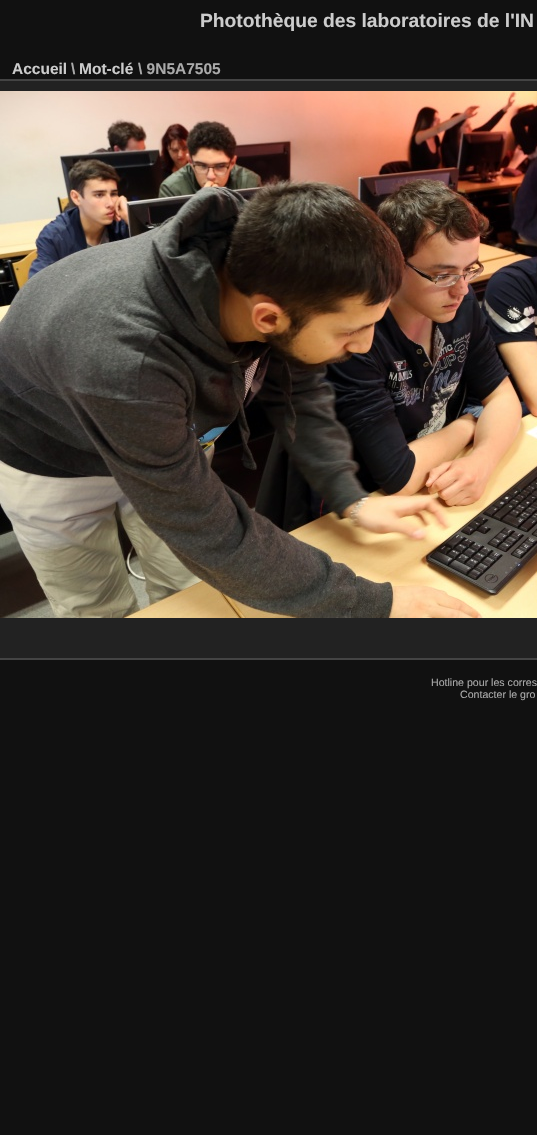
void draw(SkCanvas* canvas) {
	SkPaint paint;
	paint.setAntiAlias(true);
	canvas->clear(0xff111111);
	SkFont f1(fontMgr->matchFamilyStyle("Liberation Sans", SkFontStyle::Bold()), 19.25);
	f1.setSubpixel(true);
	paint.setColor(0xffcccccc);
	canvas->drawString("Photothèque des laboratoires de l'IN", 200, 27, f1, paint);
	paint.setColor(0xff222222);
	canvas->drawRect(SkRect::MakeXYWH(0, 81, 537, 577), paint);
	paint.setColor(0xff444444);
	canvas->drawRect(SkRect::MakeXYWH(0, 658, 537, 2), paint);
	canvas->drawRect(SkRect::MakeXYWH(0, 79, 537, 2), paint);
	SkFont f2(fontMgr->matchFamilyStyle("Liberation Sans", SkFontStyle::Bold()), 15.5);
	f2.setSubpixel(true);
	paint.setColor(0xffcccccc);
	canvas->drawString("Accueil", 12, 74, f2, paint);
	paint.setColor(0xffaaaaaa);
	canvas->drawString("\\", 71, 74, f2, paint);
	paint.setColor(0xffcccccc);
	canvas->drawString("Mot-clé", 79, 74, f2, paint);
	paint.setColor(0xffaaaaaa);
	canvas->drawString("\\ 9N5A7505", 138, 74, f2, paint);
	canvas->drawImageRect(SkImages::DeferredFromEncodedData(SkData::MakeFromFileName("img1.png")), SkRect::MakeXYWH(0, 91, 537, 527), SkSamplingOptions());
	SkFont f3(fontMgr->matchFamilyStyle("Liberation Sans", SkFontStyle::Normal()), 10.6);
	f3.setSubpixel(true);
	canvas->drawString("Hotline pour les corres", 431, 686, f3, paint);
	canvas->drawString("Contacter le gro", 460, 698, f3, paint);
}
